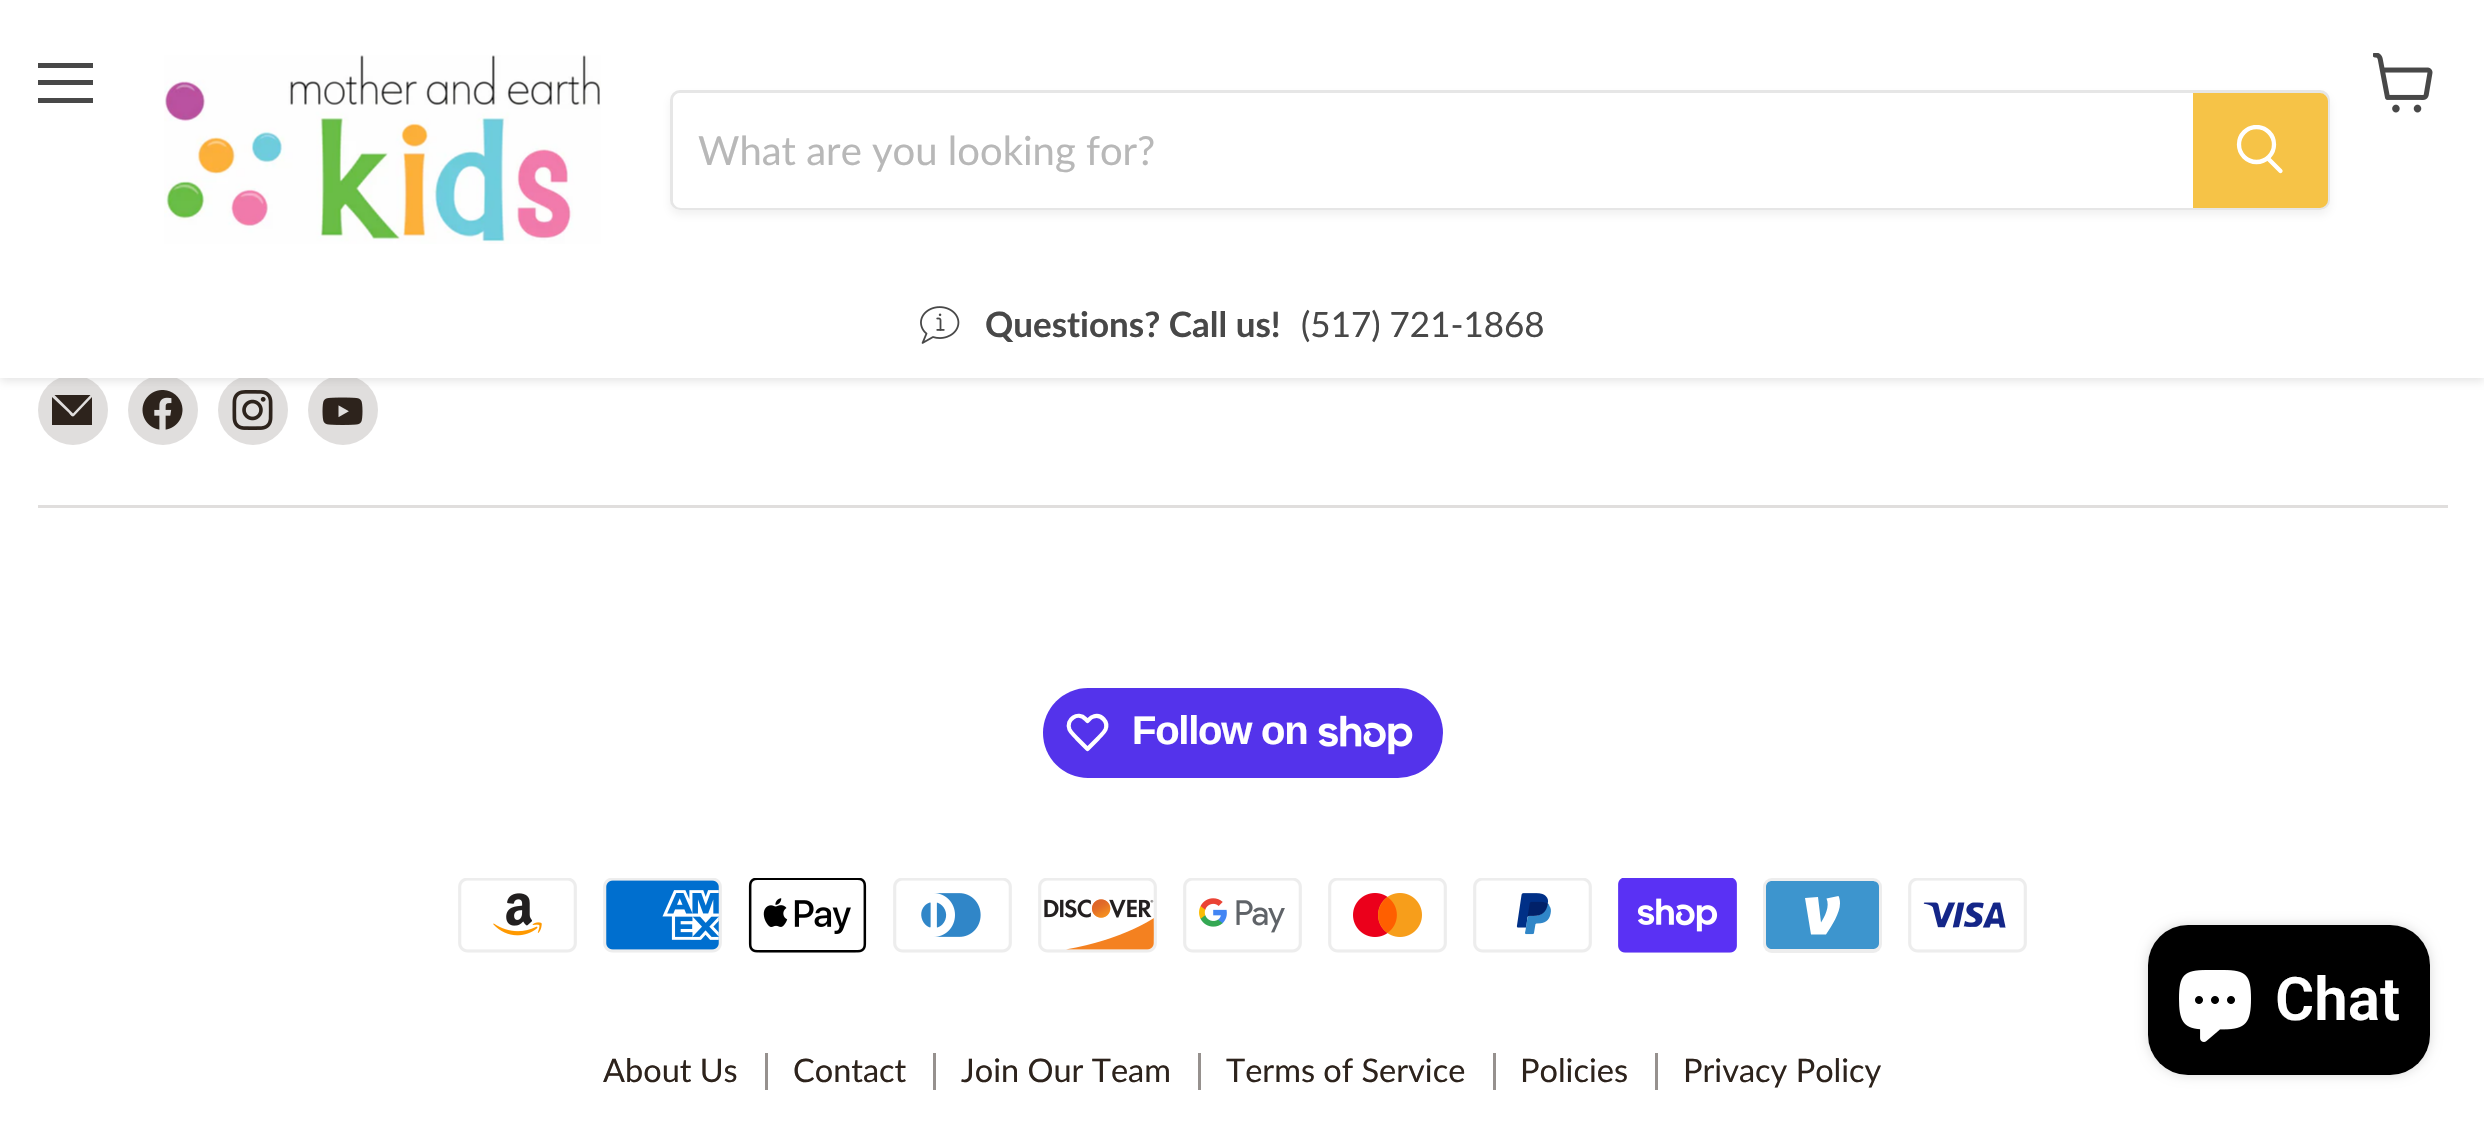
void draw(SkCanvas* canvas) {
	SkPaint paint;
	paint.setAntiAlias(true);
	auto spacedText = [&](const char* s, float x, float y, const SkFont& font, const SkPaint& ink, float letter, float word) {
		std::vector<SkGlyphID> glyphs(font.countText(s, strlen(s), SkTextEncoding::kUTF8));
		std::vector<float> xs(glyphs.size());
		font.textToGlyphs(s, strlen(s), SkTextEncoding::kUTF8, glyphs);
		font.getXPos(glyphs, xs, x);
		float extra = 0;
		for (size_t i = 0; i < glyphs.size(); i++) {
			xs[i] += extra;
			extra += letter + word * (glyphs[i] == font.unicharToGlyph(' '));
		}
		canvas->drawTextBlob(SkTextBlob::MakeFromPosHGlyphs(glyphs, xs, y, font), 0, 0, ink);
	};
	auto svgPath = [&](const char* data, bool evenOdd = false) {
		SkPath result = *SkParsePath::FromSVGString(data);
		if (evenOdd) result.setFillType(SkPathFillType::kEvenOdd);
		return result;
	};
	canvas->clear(0xffffffff);
	paint.setColor(0xffe0dedd);
	canvas->drawCircle(73, 410, 35, paint);
	paint.setColor(0xff2d231c);
	canvas->drawPath(svgPath("M74 416C72 418 69 413 69 413L52 397V425H92V397Z"), paint);
	canvas->drawPath(svgPath("M90.5 395H54.5L73 413.5Z"), paint);
	paint.setColor(0xffe0dedd);
	canvas->drawCircle(163, 410, 35, paint);
	canvas->drawImageRect(SkImages::DeferredFromEncodedData(SkData::MakeFromFileName("img4.png")), SkRect::MakeXYWH(142, 390, 41, 40), SkSamplingOptions());
	canvas->drawCircle(253, 410, 35, paint);
	canvas->drawImageRect(SkImages::DeferredFromEncodedData(SkData::MakeFromFileName("img5.png")), SkRect::MakeXYWH(232, 390, 41, 40), SkSamplingOptions());
	canvas->drawCircle(343, 410, 35, paint);
	paint.setColor(0x40808080);
	paint.setMaskFilter(SkMaskFilter::MakeBlur(kNormal_SkBlurStyle, 5));
	canvas->drawRect(SkRect::MakeXYWH(0, 3, 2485, 377), paint);
	paint.setMaskFilter(nullptr);
	paint.setColor(0xffffffff);
	canvas->drawRect(SkRect::MakeXYWH(0, 0, 2484, 378), paint);
	paint.setColor(0xff484848);
	canvas->drawRect(SkRect::MakeXYWH(38, 63, 55, 5), paint);
	canvas->drawRect(SkRect::MakeXYWH(38, 80, 55, 5), paint);
	canvas->drawRect(SkRect::MakeXYWH(38, 98, 55, 5), paint);
	canvas->drawImageRect(SkImages::DeferredFromEncodedData(SkData::MakeFromFileName("img1.png")), SkRect::MakeXYWH(2373, 53, 60, 60), SkSamplingOptions());
	canvas->drawImageRect(SkImages::DeferredFromEncodedData(SkData::MakeFromFileName("img2.png")), SkRect::MakeXYWH(164, 55, 437, 189), SkSamplingOptions());
	canvas->save();
	canvas->clipPath(svgPath("M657 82H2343V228H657ZM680 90H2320C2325.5 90 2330 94.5 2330 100V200C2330 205.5 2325.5 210 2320 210H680C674.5 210 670 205.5 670 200V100C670 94.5 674.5 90 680 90Z", true), true);
	paint.setColor(0x1c808080);
	paint.setMaskFilter(SkMaskFilter::MakeBlur(kNormal_SkBlurStyle, 4));
	canvas->drawRoundRect(SkRect::MakeXYWH(670, 95, 1660, 120), 10, 10, paint);
	paint.setMaskFilter(nullptr);
	canvas->restore();
	paint.setStroke(true);
	paint.setStrokeWidth(3);
	paint.setColor(0x33808080);
	canvas->drawRoundRect(SkRect::MakeXYWH(671.5, 91.5, 1657, 117), 8.5, 8.5, paint);
	paint.setStroke(false);
	paint.setColor(0xffffffff);
	canvas->drawPath(svgPath("M681 93H2193V208H681C676.5 208 673 204.5 673 200V101C673 96.5 676.5 93 681 93Z"), paint);
	SkFont f1(fontMgr->matchFamilyStyle("Lato", SkFontStyle::Normal()), 40);
	f1.setSubpixel(true);
	paint.setColor(0xffb8b8b8);
	canvas->drawString("What are you looking for?", 698, 165, f1, paint);
	paint.setColor(0xfff6c347);
	canvas->drawPath(svgPath("M2194.5 94.5H2320C2323.5 94.5 2326.5 97.5 2326.5 101V200C2326.5 203.5 2323.5 206.5 2320 206.5H2194.5Z"), paint);
	paint.setStroke(true);
	canvas->drawPath(svgPath("M2194.5 94.5H2320C2323.5 94.5 2326.5 97.5 2326.5 101V200C2326.5 203.5 2323.5 206.5 2320 206.5H2194.5Z"), paint);
	paint.setStrokeWidth(4.3);
	paint.setStrokeCap(SkPaint::kRound_Cap);
	paint.setColor(0xffffffff);
	canvas->drawPath(svgPath("M2280.5 171L2268.5 159"), paint);
	canvas->save();
	canvas->clipRect(SkRect::MakeXYWH(2235, 125, 50, 53));
	paint.setStrokeCap(SkPaint::kButt_Cap);
	canvas->drawCircle(2256.5, 144.5, 17.5, paint);
	canvas->restore();
	canvas->drawImageRect(SkImages::DeferredFromEncodedData(SkData::MakeFromFileName("img3.png")), SkRect::MakeXYWH(920, 306, 40, 38), SkSamplingOptions());
	SkFont f2(fontMgr->matchFamilyStyle("Lato", SkFontStyle::Bold()), 35);
	f2.setSubpixel(true);
	paint.setStroke(false);
	paint.setColor(0xff484848);
	canvas->drawString("Questions? Call us!", 985, 337, f2, paint);
	SkFont f3(fontMgr->matchFamilyStyle("Lato", SkFontStyle::Normal()), 35);
	f3.setSubpixel(true);
	canvas->drawString("(517) 721-1868", 1301, 337, f3, paint);
	paint.setColor(0xffe0dedd);
	canvas->drawRect(SkRect::MakeXYWH(38, 505, 2410, 3), paint);
	canvas->drawImageRect(SkImages::DeferredFromEncodedData(SkData::MakeFromFileName("img6.png")), SkRect::MakeXYWH(322, 397, 41, 28), SkSamplingOptions());
	paint.setColor(0xff5433eb);
	canvas->drawRoundRect(SkRect::MakeXYWH(1043, 688, 400, 90), 45, 45, paint);
	paint.setStroke(true);
	paint.setStrokeWidth(4.2);
	paint.setStrokeJoin(SkPaint::kRound_Join);
	paint.setColor(0xffffffff);
	canvas->drawPath(svgPath("M1085.5 719L1087.5 721C1089.5 719 1091 717 1093.5 716.5C1101.5 714 1108.5 722 1105.5 729.5C1104 733 1100.5 735.5 1098 738.5L1087.5 749L1077 738.5C1074.5 735.5 1071 733 1069.5 729.5C1065.5 719.5 1078 711 1085.5 719Z"), paint);
	SkFont f4(fontMgr->matchFamilyStyle("Liberation Sans", SkFontStyle::Bold()), 40);
	f4.setSubpixel(true);
	paint.setStroke(false);
	spacedText("Follow on", 1132, 744, f4, paint, -1.25, 0);
	canvas->drawImageRect(SkImages::DeferredFromEncodedData(SkData::MakeFromFileName("img7.png")), SkRect::MakeXYWH(1318, 715, 95, 40), SkSamplingOptions());
	canvas->drawImageRect(SkImages::DeferredFromEncodedData(SkData::MakeFromFileName("img8.png")), SkRect::MakeXYWH(458, 878, 119, 75), SkSamplingOptions());
	canvas->drawImageRect(SkImages::DeferredFromEncodedData(SkData::MakeFromFileName("img9.png")), SkRect::MakeXYWH(603, 878, 119, 75), SkSamplingOptions());
	canvas->drawImageRect(SkImages::DeferredFromEncodedData(SkData::MakeFromFileName("img10.png")), SkRect::MakeXYWH(748, 878, 119, 75), SkSamplingOptions());
	canvas->drawImageRect(SkImages::DeferredFromEncodedData(SkData::MakeFromFileName("img11.png")), SkRect::MakeXYWH(893, 878, 119, 75), SkSamplingOptions());
	canvas->drawImageRect(SkImages::DeferredFromEncodedData(SkData::MakeFromFileName("img12.png")), SkRect::MakeXYWH(1038, 878, 119, 75), SkSamplingOptions());
	canvas->drawImageRect(SkImages::DeferredFromEncodedData(SkData::MakeFromFileName("img13.png")), SkRect::MakeXYWH(1183, 878, 119, 75), SkSamplingOptions());
	canvas->drawImageRect(SkImages::DeferredFromEncodedData(SkData::MakeFromFileName("img14.png")), SkRect::MakeXYWH(1328, 878, 119, 75), SkSamplingOptions());
	canvas->drawImageRect(SkImages::DeferredFromEncodedData(SkData::MakeFromFileName("img15.png")), SkRect::MakeXYWH(1473, 878, 119, 75), SkSamplingOptions());
	canvas->drawImageRect(SkImages::DeferredFromEncodedData(SkData::MakeFromFileName("img16.png")), SkRect::MakeXYWH(1618, 878, 119, 75), SkSamplingOptions());
	paint.setColor(0xffededed);
	canvas->drawRoundRect(SkRect::MakeXYWH(1763, 878, 119, 75), 9, 9, paint);
	paint.setColor(0xff3d95ce);
	canvas->drawPath(svgPath("M1872 881C1876 881 1879 883 1879 887V943C1879 947 1876 949 1872 949H1772C1769 949 1766 947 1766 943V887C1766 883 1769 881 1772 881H1872", true), paint);
	paint.setColor(0xffffffff);
	canvas->drawPath(svgPath("M1840 903.5C1840 913 1832 925.5 1826 934.5H1811L1805 898L1818 897L1821 922.5C1825 916 1830 906.5 1826.5 898.5L1838.5 896C1839.5 898 1840 900.5 1840 903.5Z"), paint);
	canvas->drawImageRect(SkImages::DeferredFromEncodedData(SkData::MakeFromFileName("img17.png")), SkRect::MakeXYWH(1908, 878, 119, 75), SkSamplingOptions());
	paint.setColor(0xff96918e);
	canvas->drawRect(SkRect::MakeXYWH(765, 1053, 3, 37), paint);
	SkFont f5(fontMgr->matchFamilyStyle("Lato", SkFontStyle::Normal()), 32.5);
	f5.setSubpixel(true);
	paint.setColor(0xff2d231c);
	canvas->drawString("About Us", 603, 1082, f5, paint);
	paint.setColor(0xff96918e);
	canvas->drawRect(SkRect::MakeXYWH(933, 1053, 3, 37), paint);
	paint.setColor(0xff2d231c);
	canvas->drawString("Contact", 793, 1082, f5, paint);
	paint.setColor(0xff96918e);
	canvas->drawRect(SkRect::MakeXYWH(1198, 1053, 3, 37), paint);
	paint.setColor(0xff2d231c);
	canvas->drawString("Join Our Team", 961, 1082, f5, paint);
	paint.setColor(0xff96918e);
	canvas->drawRect(SkRect::MakeXYWH(1493, 1053, 3, 37), paint);
	paint.setColor(0xff2d231c);
	canvas->drawString("Terms of Service", 1226, 1082, f5, paint);
	paint.setColor(0xff96918e);
	canvas->drawRect(SkRect::MakeXYWH(1655, 1053, 3, 37), paint);
	paint.setColor(0xff2d231c);
	canvas->drawString("Policies", 1520, 1082, f5, paint);
	canvas->drawString("Privacy Policy", 1683, 1082, f5, paint);
	paint.setColor(0x26000000);
	paint.setMaskFilter(SkMaskFilter::MakeBlur(kNormal_SkBlurStyle, 6));
	canvas->drawRoundRect(SkRect::MakeXYWH(2148, 925, 282, 150), 40, 40, paint);
	paint.setMaskFilter(nullptr);
	paint.setColor(0xff000000);
	canvas->drawRoundRect(SkRect::MakeXYWH(2148, 925, 282, 150), 40, 40, paint);
	canvas->drawImageRect(SkImages::DeferredFromEncodedData(SkData::MakeFromFileName("img18.png")), SkRect::MakeXYWH(2179, 970, 72, 72), SkSamplingOptions());
	SkFont f6(fontMgr->matchFamilyStyle("Roboto", SkFontStyle(600, SkFontStyle::kNormal_Width, SkFontStyle::kUpright_Slant)), 60);
	f6.setSubpixel(true);
	paint.setColor(0xffffffff);
	canvas->drawString("Chat", 2275, 1020, f6, paint);
}
